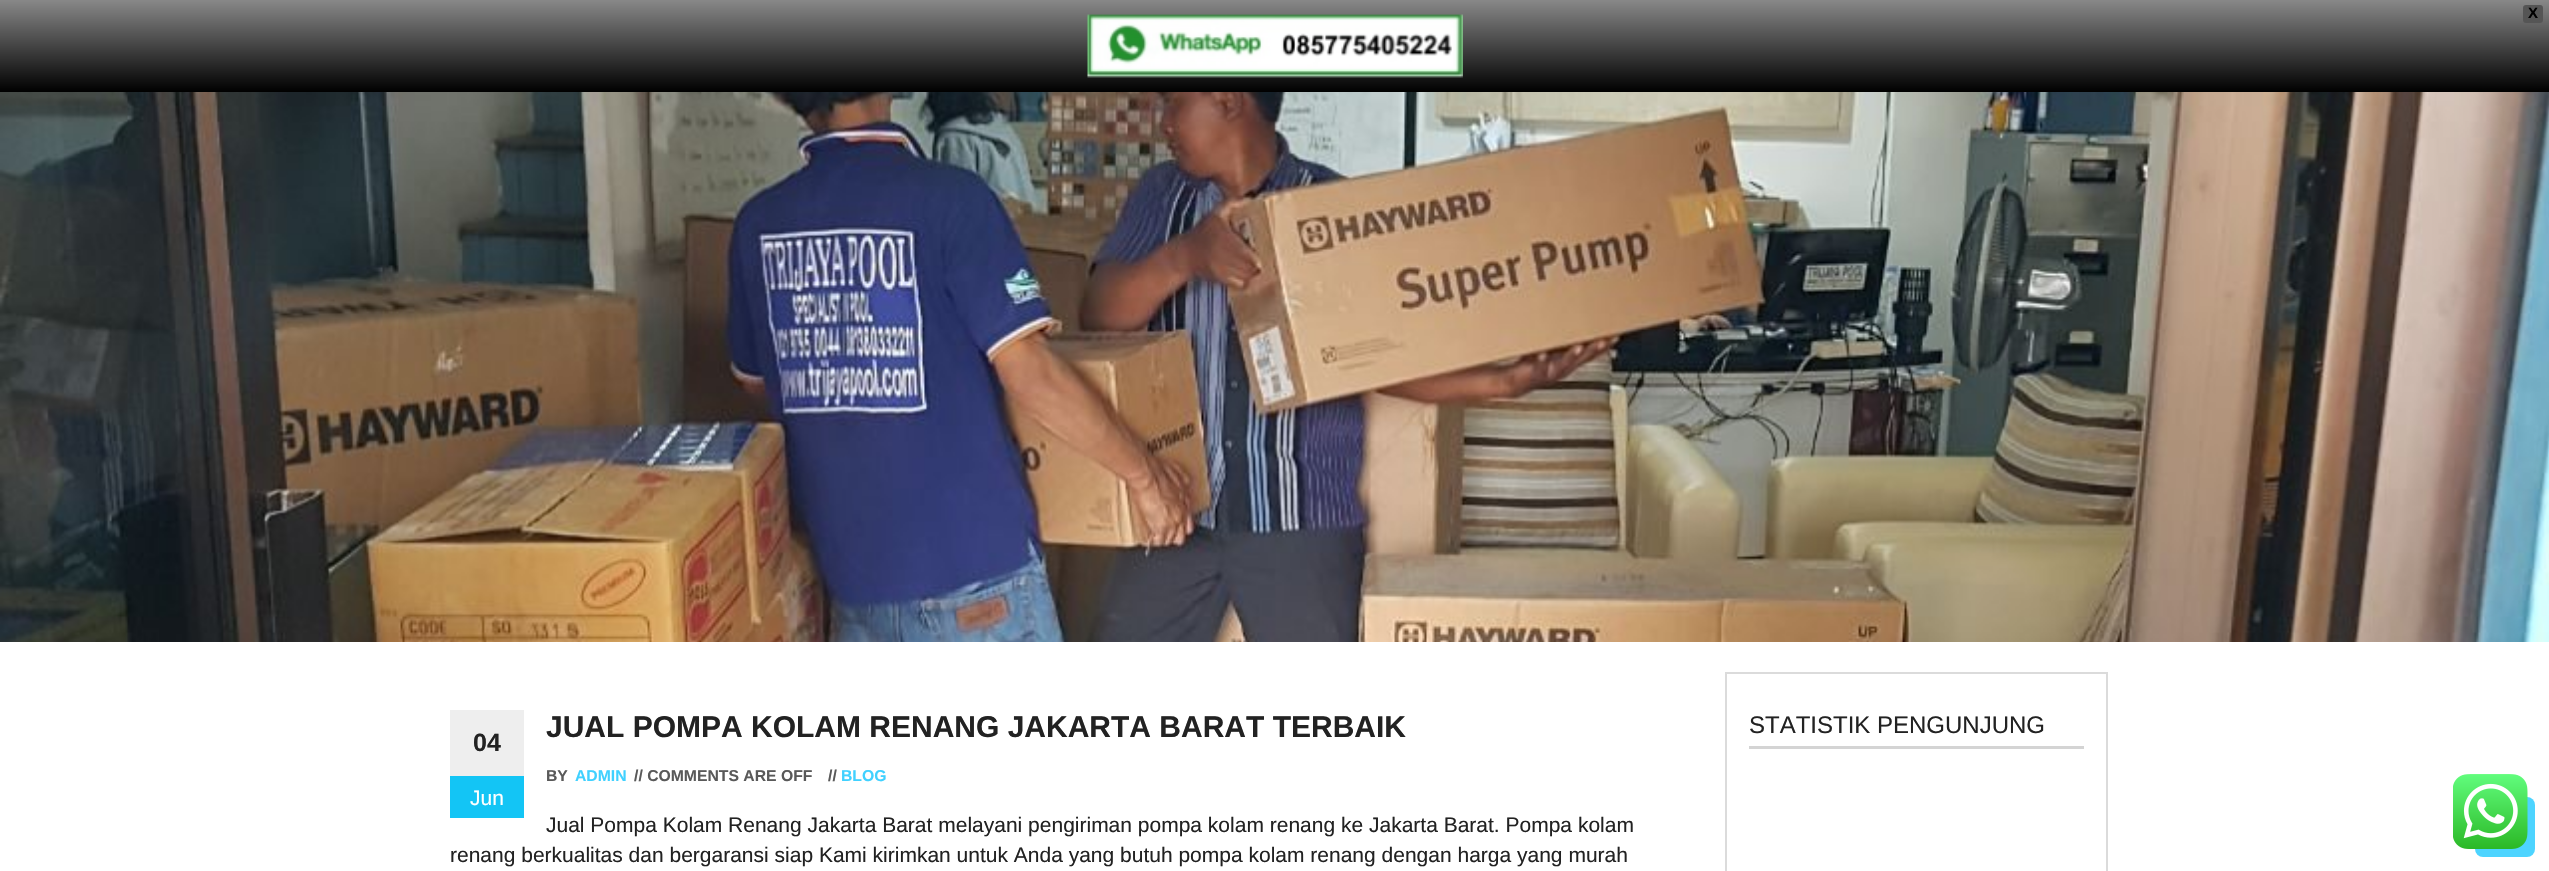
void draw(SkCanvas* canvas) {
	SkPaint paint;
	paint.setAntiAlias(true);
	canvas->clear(0xffffffff);
	{
		const SkColor colors[] = {0xff888888, 0xff000000};
		const float stops[] = {0, 1};
		const SkPoint ends[] = {{1275, 0}, {1275, 92}};
		paint.setShader(SkGradientShader::MakeLinear(ends, colors, stops, 2, SkTileMode::kClamp));
		paint.setAlpha(255);
	}
	canvas->drawRect(SkRect::MakeXYWH(0, 0, 2549, 92), paint);
	paint.setShader(nullptr);
	paint.setColor(0xff555555);
	canvas->drawRoundRect(SkRect::MakeXYWH(2524, 6, 18, 16), 2, 2, paint);
	paint.setStroke(true);
	paint.setStrokeWidth(2);
	canvas->drawRoundRect(SkRect::MakeXYWH(2524, 6, 18, 16), 2, 2, paint);
	SkFont f1(fontMgr->matchFamilyStyle("Liberation Sans", SkFontStyle::Bold()), 15);
	f1.setSubpixel(true);
	paint.setStroke(false);
	paint.setColor(0xff000000);
	canvas->drawString("X", 2528, 18, f1, paint);
	canvas->drawImageRect(SkImages::DeferredFromEncodedData(SkData::MakeFromFileName("img1.png")), SkRect::MakeXYWH(1087, 14, 376, 64), SkSamplingOptions());
	canvas->drawImageRect(SkImages::DeferredFromEncodedData(SkData::MakeFromFileName("img2.png")), SkRect::MakeXYWH(0, 92, 2549, 550), SkSamplingOptions());
	SkFont f2(fontMgr->matchFamilyStyle("Liberation Sans", SkFontStyle::Bold()), 30);
	f2.setSubpixel(true);
	paint.setColor(0xff222222);
	canvas->drawString("JUAL POMPA KOLAM RENANG JAKARTA BARAT TERBAIK", 546, 737, f2, paint);
	paint.setColor(0xffeeeeee);
	canvas->drawRect(SkRect::MakeXYWH(450, 710, 74, 66), paint);
	SkFont f3(fontMgr->matchFamilyStyle("Liberation Sans", SkFontStyle::Bold()), 25);
	f3.setSubpixel(true);
	paint.setColor(0xff222222);
	canvas->drawString("04", 473, 751, f3, paint);
	paint.setColor(0xff13c5f5);
	canvas->drawRect(SkRect::MakeXYWH(450, 776, 74, 42), paint);
	SkFont f4(fontMgr->matchFamilyStyle("Liberation Sans", SkFontStyle::Normal()), 21);
	f4.setSubpixel(true);
	paint.setColor(0xffffffff);
	canvas->drawString("Jun", 470, 805, f4, paint);
	SkFont f5(fontMgr->matchFamilyStyle("Liberation Sans", SkFontStyle::Bold()), 15.75);
	f5.setSubpixel(true);
	paint.setColor(0xff595959);
	canvas->drawString("BY", 546, 781, f5, paint);
	paint.setColor(0xff40d1ff);
	canvas->drawString("ADMIN", 575, 781, f5, paint);
	paint.setColor(0xff595959);
	canvas->drawString("// COMMENTS ARE OFF", 634, 781, f5, paint);
	canvas->drawString("//", 828, 781, f5, paint);
	paint.setColor(0xff40d1ff);
	canvas->drawString("BLOG", 841, 781, f5, paint);
	paint.setColor(0xff222222);
	canvas->drawString("Jual Pompa Kolam Renang Jakarta Barat melayani pengiriman pompa kolam renang ke Jakarta Barat. Pompa kolam", 546, 832, f4, paint);
	canvas->drawString("renang berkualitas dan bergaransi siap Kami kirimkan untuk Anda yang butuh pompa kolam renang dengan harga yang murah", 450, 862, f4, paint);
	paint.setStroke(true);
	paint.setColor(0xffdbdbdb);
	canvas->drawRect(SkRect::MakeXYWH(1726, 673, 381, 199), paint);
	paint.setStroke(false);
	paint.setColor(0xffd4d4d4);
	canvas->drawRect(SkRect::MakeXYWH(1749, 746, 335, 3), paint);
	SkFont f6(fontMgr->matchFamilyStyle("Liberation Sans", SkFontStyle::Normal()), 24);
	f6.setSubpixel(true);
	paint.setColor(0xff222222);
	canvas->drawString("STATISTIK PENGUNJUNG", 1749, 733, f6, paint);
	paint.setColor(0xff4dd4ff);
	canvas->drawRoundRect(SkRect::MakeXYWH(2475, 797, 60, 60), 8, 8, paint);
	canvas->drawImageRect(SkImages::DeferredFromEncodedData(SkData::MakeFromFileName("img3.png")), SkRect::MakeXYWH(2453, 774, 75, 75), SkSamplingOptions());
}
